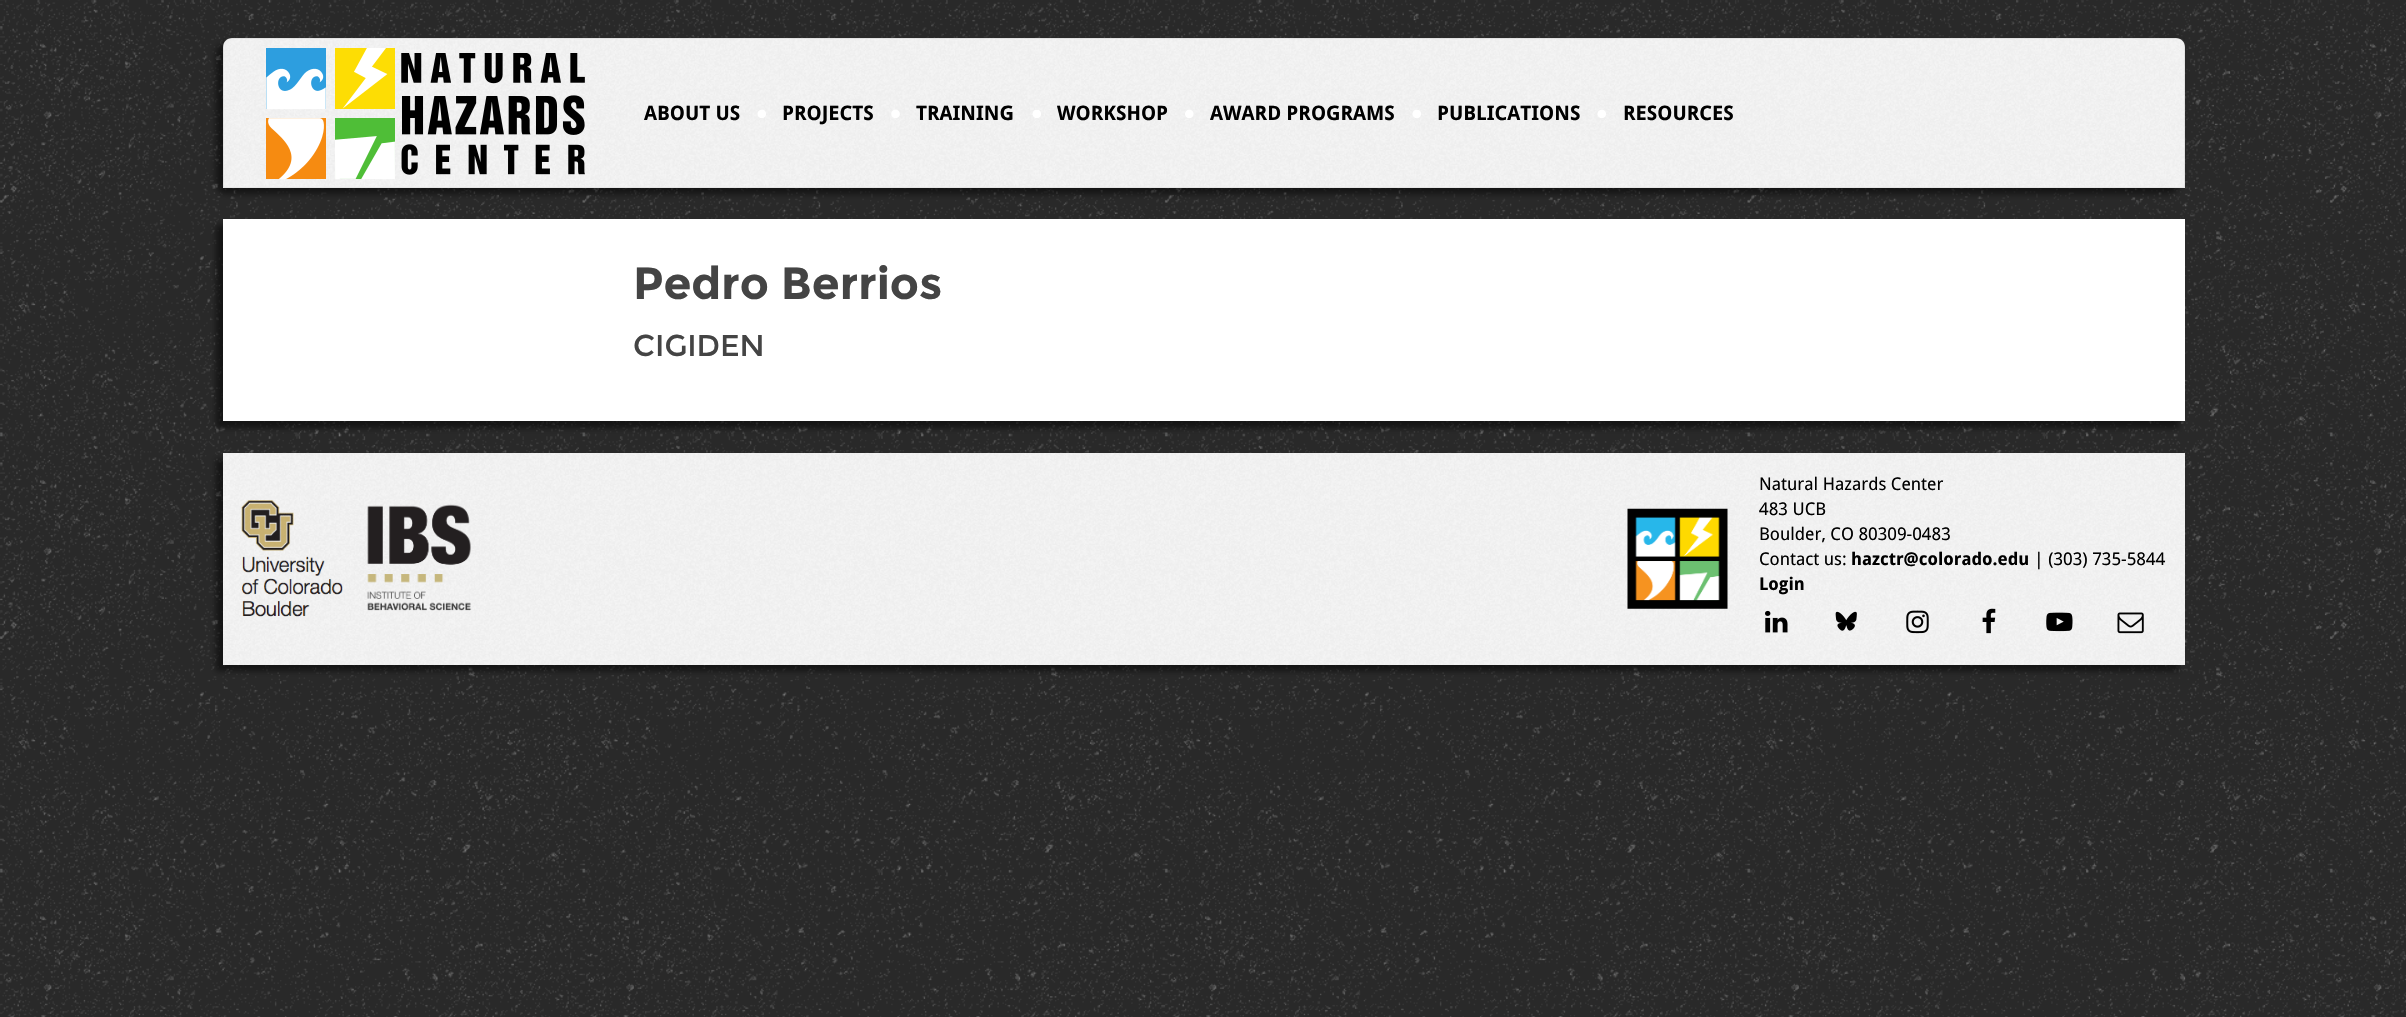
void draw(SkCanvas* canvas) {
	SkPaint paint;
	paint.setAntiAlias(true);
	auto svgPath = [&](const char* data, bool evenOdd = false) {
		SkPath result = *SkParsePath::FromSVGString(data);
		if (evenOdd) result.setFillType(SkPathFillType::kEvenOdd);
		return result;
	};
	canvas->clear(0xff292929);
	canvas->drawImageRect(SkImages::DeferredFromEncodedData(SkData::MakeFromFileName("img1.png")), SkRect::MakeXYWH(0, 0, 2406, 1017), SkSamplingOptions());
	paint.setColor(0x80000000);
	paint.setMaskFilter(SkMaskFilter::MakeBlur(kNormal_SkBlurStyle, 3));
	canvas->drawRoundRect(SkRect::MakeXYWH(216, 44, 1963, 150), 9, 9, paint);
	paint.setMaskFilter(nullptr);
	paint.setColor(0xfff5f5f5);
	canvas->drawPath(svgPath("M232 38H2176C2181 38 2185 42 2185 47V188H223V47C223 42 227 38 232 38Z"), paint);
	canvas->drawImageRect(SkImages::DeferredFromEncodedData(SkData::MakeFromFileName("img2.png")), SkRect::MakeXYWH(223, 38, 1962, 149), SkSamplingOptions());
	paint.setStroke(true);
	paint.setStrokeWidth(1);
	paint.setColor(0x0f000000);
	canvas->drawRect(SkRect::MakeXYWH(223.5, 38.5, 1961, 149), paint);
	canvas->drawImageRect(SkImages::DeferredFromEncodedData(SkData::MakeFromFileName("img3.png")), SkRect::MakeXYWH(266, 48, 129, 132), SkSamplingOptions());
	canvas->drawImageRect(SkImages::DeferredFromEncodedData(SkData::MakeFromFileName("img4.png")), SkRect::MakeXYWH(401, 53, 184, 122), SkSamplingOptions());
	SkFont f1(fontMgr->matchFamilyStyle("Droid Sans", SkFontStyle::Bold()), 20);
	f1.setSubpixel(true);
	paint.setStroke(false);
	paint.setColor(0xff000000);
	canvas->drawString("ABOUT US", 644, 120, f1, paint);
	canvas->drawImageRect(SkImages::DeferredFromEncodedData(SkData::MakeFromFileName("img5.png")), SkRect::MakeXYWH(757, 109, 9, 9), SkSamplingOptions());
	canvas->drawString("PROJECTS", 782, 120, f1, paint);
	canvas->drawImageRect(SkImages::DeferredFromEncodedData(SkData::MakeFromFileName("img6.png")), SkRect::MakeXYWH(891, 109, 9, 9), SkSamplingOptions());
	canvas->drawString("TRAINING", 916, 120, f1, paint);
	canvas->drawImageRect(SkImages::DeferredFromEncodedData(SkData::MakeFromFileName("img7.png")), SkRect::MakeXYWH(1032, 110, 9, 8), SkSamplingOptions());
	canvas->drawString("WORKSHOP", 1057, 120, f1, paint);
	canvas->drawImageRect(SkImages::DeferredFromEncodedData(SkData::MakeFromFileName("img8.png")), SkRect::MakeXYWH(1185, 109, 9, 9), SkSamplingOptions());
	canvas->drawString("AWARD PROGRAMS", 1210, 120, f1, paint);
	canvas->drawImageRect(SkImages::DeferredFromEncodedData(SkData::MakeFromFileName("img9.png")), SkRect::MakeXYWH(1412, 110, 9, 8), SkSamplingOptions());
	canvas->drawString("PUBLICATIONS", 1437, 120, f1, paint);
	canvas->drawImageRect(SkImages::DeferredFromEncodedData(SkData::MakeFromFileName("img10.png")), SkRect::MakeXYWH(1597, 109, 9, 9), SkSamplingOptions());
	canvas->drawString("RESOURCES", 1623, 120, f1, paint);
	paint.setColor(0x80000000);
	paint.setMaskFilter(SkMaskFilter::MakeBlur(kNormal_SkBlurStyle, 3));
	canvas->drawRect(SkRect::MakeXYWH(216, 225, 1963, 203), paint);
	paint.setMaskFilter(nullptr);
	paint.setColor(0xffffffff);
	canvas->drawRect(SkRect::MakeXYWH(223, 219, 1962, 202), paint);
	SkFont f2(fontMgr->matchFamilyStyle("Montserrat", SkFontStyle::Bold()), 45);
	f2.setSubpixel(true);
	paint.setColor(0xff444444);
	canvas->drawString("Pedro Berrios", 633, 299, f2, paint);
	SkFont f3(fontMgr->matchFamilyStyle("Montserrat", SkFontStyle::Normal()), 30);
	f3.setSubpixel(true);
	canvas->drawString("CIGIDEN", 633, 356, f3, paint);
	paint.setColor(0x80000000);
	paint.setMaskFilter(SkMaskFilter::MakeBlur(kNormal_SkBlurStyle, 3));
	canvas->drawRect(SkRect::MakeXYWH(216, 459, 1963, 212), paint);
	paint.setMaskFilter(nullptr);
	paint.setColor(0xfff5f5f5);
	canvas->drawRect(SkRect::MakeXYWH(223, 453, 1962, 212), paint);
	canvas->drawImageRect(SkImages::DeferredFromEncodedData(SkData::MakeFromFileName("img11.png")), SkRect::MakeXYWH(223, 453, 1962, 212), SkSamplingOptions());
	canvas->drawImageRect(SkImages::DeferredFromEncodedData(SkData::MakeFromFileName("img12.png")), SkRect::MakeXYWH(241, 500, 102, 117), SkSamplingOptions());
	canvas->drawImageRect(SkImages::DeferredFromEncodedData(SkData::MakeFromFileName("img13.png")), SkRect::MakeXYWH(367, 504, 105, 107), SkSamplingOptions());
	canvas->drawImageRect(SkImages::DeferredFromEncodedData(SkData::MakeFromFileName("img14.png")), SkRect::MakeXYWH(1627, 508, 101, 101), SkSamplingOptions());
	SkFont f4(fontMgr->matchFamilyStyle("Droid Sans", SkFontStyle::Normal()), 17.5);
	f4.setSubpixel(true);
	paint.setColor(0xff000000);
	canvas->drawString("Natural Hazards Center", 1759, 490, f4, paint);
	canvas->drawString("483 UCB", 1759, 515, f4, paint);
	canvas->drawString("Boulder, CO 80309-0483", 1759, 540, f4, paint);
	canvas->drawString("Contact us:", 1759, 565, f4, paint);
	SkFont f5(fontMgr->matchFamilyStyle("Droid Sans", SkFontStyle::Bold()), 17.5);
	f5.setSubpixel(true);
	canvas->drawString("hazctr@colorado.edu", 1851, 565, f5, paint);
	canvas->drawString("| (303) 735-5844", 2034, 565, f4, paint);
	canvas->drawString("Login", 1759, 590, f5, paint);
	canvas->drawImageRect(SkImages::DeferredFromEncodedData(SkData::MakeFromFileName("img15.png")), SkRect::MakeXYWH(1765, 610, 23, 23), SkSamplingOptions());
	canvas->drawImageRect(SkImages::DeferredFromEncodedData(SkData::MakeFromFileName("img16.png")), SkRect::MakeXYWH(1835, 611, 22, 20), SkSamplingOptions());
	canvas->drawImageRect(SkImages::DeferredFromEncodedData(SkData::MakeFromFileName("img17.png")), SkRect::MakeXYWH(1906, 610, 23, 24), SkSamplingOptions());
	canvas->drawImageRect(SkImages::DeferredFromEncodedData(SkData::MakeFromFileName("img18.png")), SkRect::MakeXYWH(1982, 608, 14, 26), SkSamplingOptions());
	canvas->drawImageRect(SkImages::DeferredFromEncodedData(SkData::MakeFromFileName("img19.png")), SkRect::MakeXYWH(2046, 612, 27, 20), SkSamplingOptions());
	canvas->drawImageRect(SkImages::DeferredFromEncodedData(SkData::MakeFromFileName("img20.png")), SkRect::MakeXYWH(2117, 612, 27, 22), SkSamplingOptions());
}
